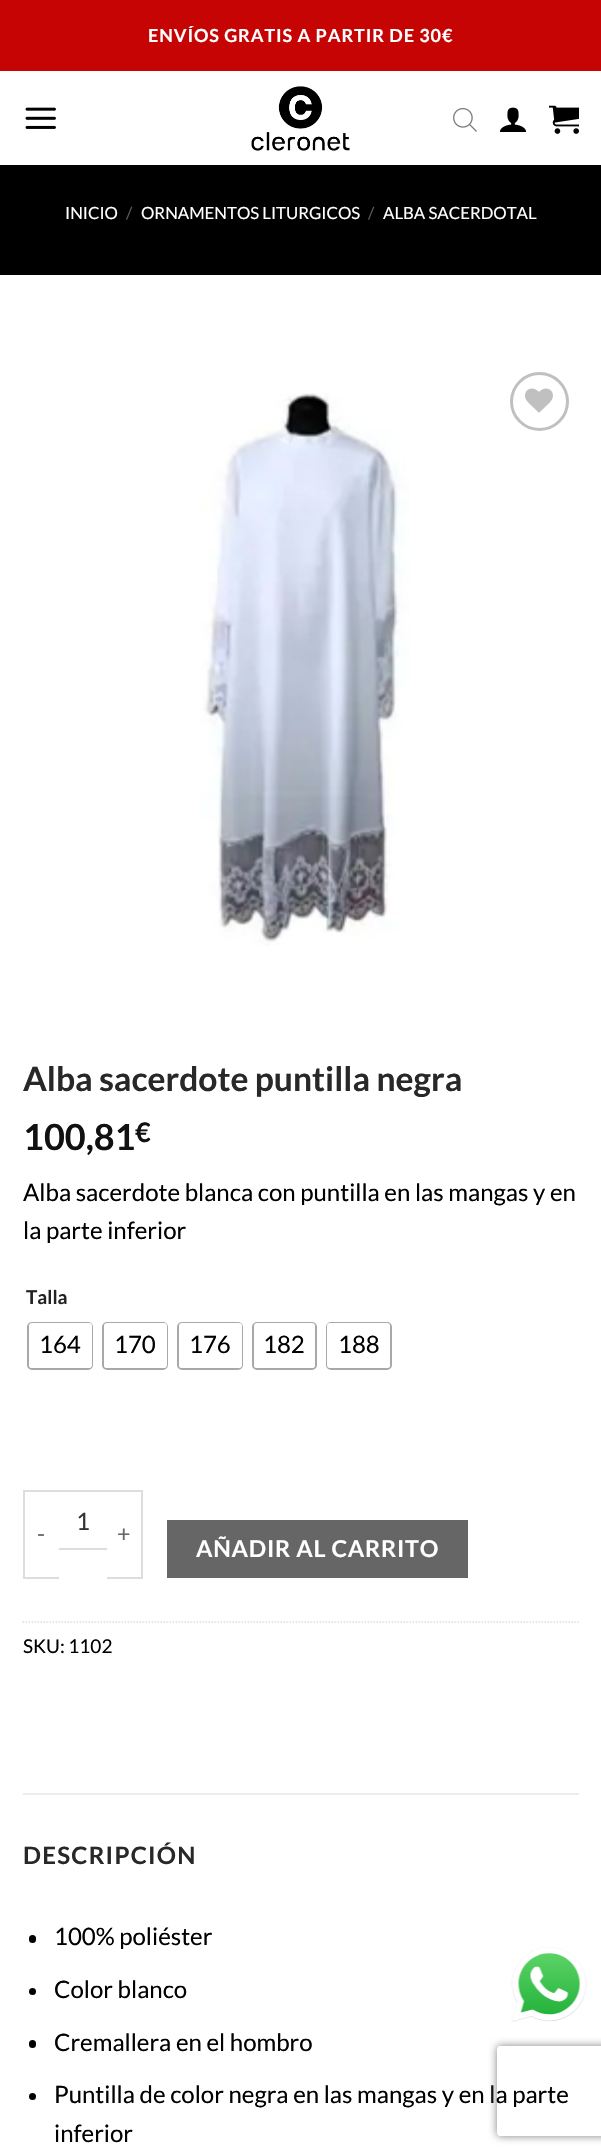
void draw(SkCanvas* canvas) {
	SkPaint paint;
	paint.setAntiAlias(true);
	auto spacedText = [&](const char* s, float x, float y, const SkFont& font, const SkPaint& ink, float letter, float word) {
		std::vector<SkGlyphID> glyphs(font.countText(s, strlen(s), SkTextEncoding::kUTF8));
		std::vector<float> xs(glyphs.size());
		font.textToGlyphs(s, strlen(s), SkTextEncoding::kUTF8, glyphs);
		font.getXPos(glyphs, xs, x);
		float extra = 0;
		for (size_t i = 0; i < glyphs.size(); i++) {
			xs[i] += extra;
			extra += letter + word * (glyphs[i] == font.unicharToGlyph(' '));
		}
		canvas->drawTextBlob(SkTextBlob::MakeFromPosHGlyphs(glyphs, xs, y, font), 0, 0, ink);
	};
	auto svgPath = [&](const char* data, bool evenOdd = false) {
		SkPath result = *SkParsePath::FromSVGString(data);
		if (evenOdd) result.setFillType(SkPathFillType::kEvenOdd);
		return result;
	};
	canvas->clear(0xffffffff);
	paint.setColor(0xffc70404);
	canvas->drawRect(SkRect::MakeXYWH(0, 0, 601, 71), paint);
	SkFont f1(fontMgr->matchFamilyStyle("Lato", SkFontStyle::Bold()), 18);
	f1.setSubpixel(true);
	paint.setColor(0xffffffff);
	spacedText("ENVÍOS GRATIS A PARTIR DE 30€", 148, 42, f1, paint, 0.9, 0);
	canvas->drawImageRect(SkImages::DeferredFromEncodedData(SkData::MakeFromFileName("img1.png")), SkRect::MakeXYWH(25, 107, 31, 22), SkSamplingOptions());
	canvas->drawImageRect(SkImages::DeferredFromEncodedData(SkData::MakeFromFileName("img2.png")), SkRect::MakeXYWH(251, 86, 99, 65), SkSamplingOptions());
	canvas->drawImageRect(SkImages::DeferredFromEncodedData(SkData::MakeFromFileName("img3.png")), SkRect::MakeXYWH(453, 108, 24, 24), SkSamplingOptions());
	canvas->drawImageRect(SkImages::DeferredFromEncodedData(SkData::MakeFromFileName("img4.png")), SkRect::MakeXYWH(499, 107, 28, 25), SkSamplingOptions());
	canvas->drawImageRect(SkImages::DeferredFromEncodedData(SkData::MakeFromFileName("img5.png")), SkRect::MakeXYWH(549, 105, 30, 29), SkSamplingOptions());
	paint.setColor(0xff000000);
	canvas->drawRect(SkRect::MakeXYWH(0, 165, 601, 110), paint);
	SkFont f2(fontMgr->matchFamilyStyle("Lato", SkFontStyle::Normal()), 16.75);
	f2.setSubpixel(true);
	paint.setColor(0xffffffff);
	canvas->drawString("INICIO", 65, 219, f2, paint);
	paint.setColor(0xff595959);
	canvas->drawString("/", 126, 219, f2, paint);
	paint.setColor(0xffffffff);
	canvas->drawString("ORNAMENTOS LITURGICOS", 141, 219, f2, paint);
	paint.setColor(0xff595959);
	canvas->drawString("/", 368, 219, f2, paint);
	paint.setColor(0xffffffff);
	canvas->drawString("ALBA SACERDOTAL", 383, 219, f2, paint);
	canvas->drawImageRect(SkImages::DeferredFromEncodedData(SkData::MakeFromFileName("img6.png")), SkRect::MakeXYWH(199, 393, 211, 553), SkSamplingOptions());
	paint.setStroke(true);
	paint.setStrokeWidth(3);
	paint.setColor(0xffc0c0c0);
	canvas->drawCircle(539.5, 401.5, 28, paint);
	canvas->drawImageRect(SkImages::DeferredFromEncodedData(SkData::MakeFromFileName("img7.png")), SkRect::MakeXYWH(525, 388, 28, 25), SkSamplingOptions());
	SkFont f3(fontMgr->matchFamilyStyle("Lato", SkFontStyle::Bold()), 33.6);
	f3.setSubpixel(true);
	paint.setStroke(false);
	paint.setColor(0xff282828);
	canvas->drawString("Alba sacerdote puntilla negra", 23, 1091, f3, paint);
	SkFont f4(fontMgr->matchFamilyStyle("Lato", SkFontStyle::Bold()), 36);
	f4.setSubpixel(true);
	paint.setColor(0xff111111);
	canvas->drawString("100,81", 23, 1150, f4, paint);
	SkFont f5(fontMgr->matchFamilyStyle("Lato", SkFontStyle::Bold()), 27);
	f5.setSubpixel(true);
	canvas->drawString("€", 135, 1142, f5, paint);
	SkFont f6(fontMgr->matchFamilyStyle("Lato", SkFontStyle::Normal()), 24);
	f6.setSubpixel(true);
	paint.setColor(0xff000000);
	canvas->drawString("Alba sacerdote blanca con puntilla en las mangas y en", 23, 1201, f6, paint);
	canvas->drawString("la parte inferior", 23, 1239, f6, paint);
	SkFont f7(fontMgr->matchFamilyStyle("Lato", SkFontStyle::Bold()), 19);
	f7.setSubpixel(true);
	paint.setColor(0xff222222);
	canvas->drawString("Talla", 26, 1304, f7, paint);
	paint.setStroke(true);
	paint.setStrokeWidth(2);
	paint.setColor(0xffa8a8a8);
	canvas->drawRoundRect(SkRect::MakeXYWH(28, 1323, 64, 46), 4, 4, paint);
	paint.setStroke(false);
	paint.setColor(0xffffffff);
	canvas->drawRoundRect(SkRect::MakeXYWH(29, 1323, 63, 45), 3, 3, paint);
	paint.setColor(0xff000000);
	canvas->drawString("164", 39, 1353, f6, paint);
	paint.setStroke(true);
	paint.setColor(0xffa8a8a8);
	canvas->drawRoundRect(SkRect::MakeXYWH(103, 1323, 64, 46), 4, 4, paint);
	paint.setStroke(false);
	paint.setColor(0xffffffff);
	canvas->drawRoundRect(SkRect::MakeXYWH(104, 1323, 63, 45), 3, 3, paint);
	paint.setColor(0xff000000);
	canvas->drawString("170", 114, 1353, f6, paint);
	paint.setStroke(true);
	paint.setColor(0xffa8a8a8);
	canvas->drawRoundRect(SkRect::MakeXYWH(178, 1323, 64, 46), 4, 4, paint);
	paint.setStroke(false);
	paint.setColor(0xffffffff);
	canvas->drawRoundRect(SkRect::MakeXYWH(179, 1323, 63, 45), 3, 3, paint);
	paint.setColor(0xff000000);
	canvas->drawString("176", 189, 1353, f6, paint);
	paint.setStroke(true);
	paint.setColor(0xffa8a8a8);
	canvas->drawRoundRect(SkRect::MakeXYWH(253, 1323, 63, 46), 4, 4, paint);
	paint.setStroke(false);
	paint.setColor(0xffffffff);
	canvas->drawRoundRect(SkRect::MakeXYWH(254, 1323, 61, 45), 3, 3, paint);
	paint.setColor(0xff000000);
	canvas->drawString("182", 263, 1353, f6, paint);
	paint.setStroke(true);
	paint.setColor(0xffa8a8a8);
	canvas->drawRoundRect(SkRect::MakeXYWH(327, 1323, 64, 46), 4, 4, paint);
	paint.setStroke(false);
	paint.setColor(0xffffffff);
	canvas->drawRoundRect(SkRect::MakeXYWH(327, 1323, 63, 45), 3, 3, paint);
	paint.setColor(0xff000000);
	canvas->drawString("188", 338, 1353, f6, paint);
	paint.setColor(0xffdddddd);
	canvas->drawRect(SkRect::MakeXYWH(23, 1490, 120, 2), paint);
	canvas->drawRect(SkRect::MakeXYWH(59, 1548, 48, 2), paint);
	paint.setColor(0xff333333);
	canvas->drawString("1", 76, 1530, f6, paint);
	paint.setColor(0xffdddddd);
	canvas->drawRect(SkRect::MakeXYWH(23, 1577, 36, 2), paint);
	canvas->drawRect(SkRect::MakeXYWH(23, 1490, 2, 88), paint);
	SkFont f8(fontMgr->matchFamilyStyle("Lato", SkFontStyle::Normal()), 23.25);
	f8.setSubpixel(true);
	paint.setColor(0xff666666);
	spacedText("-", 37, 1542, f8, paint, 0.75, 0);
	paint.setColor(0xffdddddd);
	canvas->drawRect(SkRect::MakeXYWH(141, 1490, 2, 88), paint);
	canvas->drawRect(SkRect::MakeXYWH(107, 1577, 36, 2), paint);
	paint.setColor(0xff666666);
	spacedText("+", 117, 1542, f8, paint, 0.75, 0);
	canvas->drawRect(SkRect::MakeXYWH(167, 1520, 301, 58), paint);
	SkFont f9(fontMgr->matchFamilyStyle("Lato", SkFontStyle::Bold()), 23.25);
	f9.setSubpixel(true);
	paint.setColor(0xffffffff);
	spacedText("AÑADIR AL CARRITO", 196, 1557, f9, paint, 0.75, 0);
	paint.setStroke(true);
	paint.setStrokeWidth(1.5);
	paint.setColor(0xffdddddd);
	paint.setPathEffect(SkDashPathEffect::Make({{1.5f, 1.5f}}, 0));
	canvas->drawPath(svgPath("M22.5 1622H579"), paint);
	paint.setPathEffect(nullptr);
	SkFont f10(fontMgr->matchFamilyStyle("Lato", SkFontStyle::Normal()), 19);
	f10.setSubpixel(true);
	paint.setStroke(false);
	paint.setColor(0xff000000);
	canvas->drawString("SKU: 1102", 23, 1653, f10, paint);
	paint.setColor(0xffececec);
	canvas->drawRect(SkRect::MakeXYWH(23, 1793, 556, 2), paint);
	SkFont f11(fontMgr->matchFamilyStyle("Lato", SkFontStyle::Bold()), 24);
	f11.setSubpixel(true);
	paint.setColor(0xff282828);
	spacedText("DESCRIPCIÓN", 23, 1864, f11, paint, 1.25, 0);
	paint.setColor(0xff000000);
	canvas->drawRoundRect(SkRect::MakeXYWH(29, 1935, 7, 8), 3.5, 3.5, paint);
	canvas->drawString("100% poliéster", 54, 1945, f6, paint);
	canvas->drawCircle(32.5, 1991.5, 3.5, paint);
	canvas->drawString("Color blanco", 54, 1998, f6, paint);
	canvas->drawRoundRect(SkRect::MakeXYWH(29, 2040, 7, 8), 3.5, 3.5, paint);
	canvas->drawString("Cremallera en el hombro", 54, 2051, f6, paint);
	canvas->drawCircle(32.5, 2096.5, 3.5, paint);
	canvas->drawString("Puntilla de color negra en las mangas y en la parte", 54, 2103, f6, paint);
	canvas->drawString("inferior", 54, 2142, f6, paint);
	canvas->drawImageRect(SkImages::DeferredFromEncodedData(SkData::MakeFromFileName("img8.png")), SkRect::MakeXYWH(511, 1947, 76, 75), SkSamplingOptions());
	canvas->save();
	canvas->clipPath(svgPath("M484 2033H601V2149H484ZM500 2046H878C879.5 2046 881 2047.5 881 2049V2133C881 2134.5 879.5 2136 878 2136H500C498.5 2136 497 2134.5 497 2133V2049C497 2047.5 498.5 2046 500 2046Z", true), true);
	paint.setColor(0xff808080);
	paint.setMaskFilter(SkMaskFilter::MakeBlur(kNormal_SkBlurStyle, 4));
	canvas->drawRoundRect(SkRect::MakeXYWH(497, 2046, 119, 90), 3, 3, paint);
	paint.setMaskFilter(nullptr);
	canvas->restore();
}
